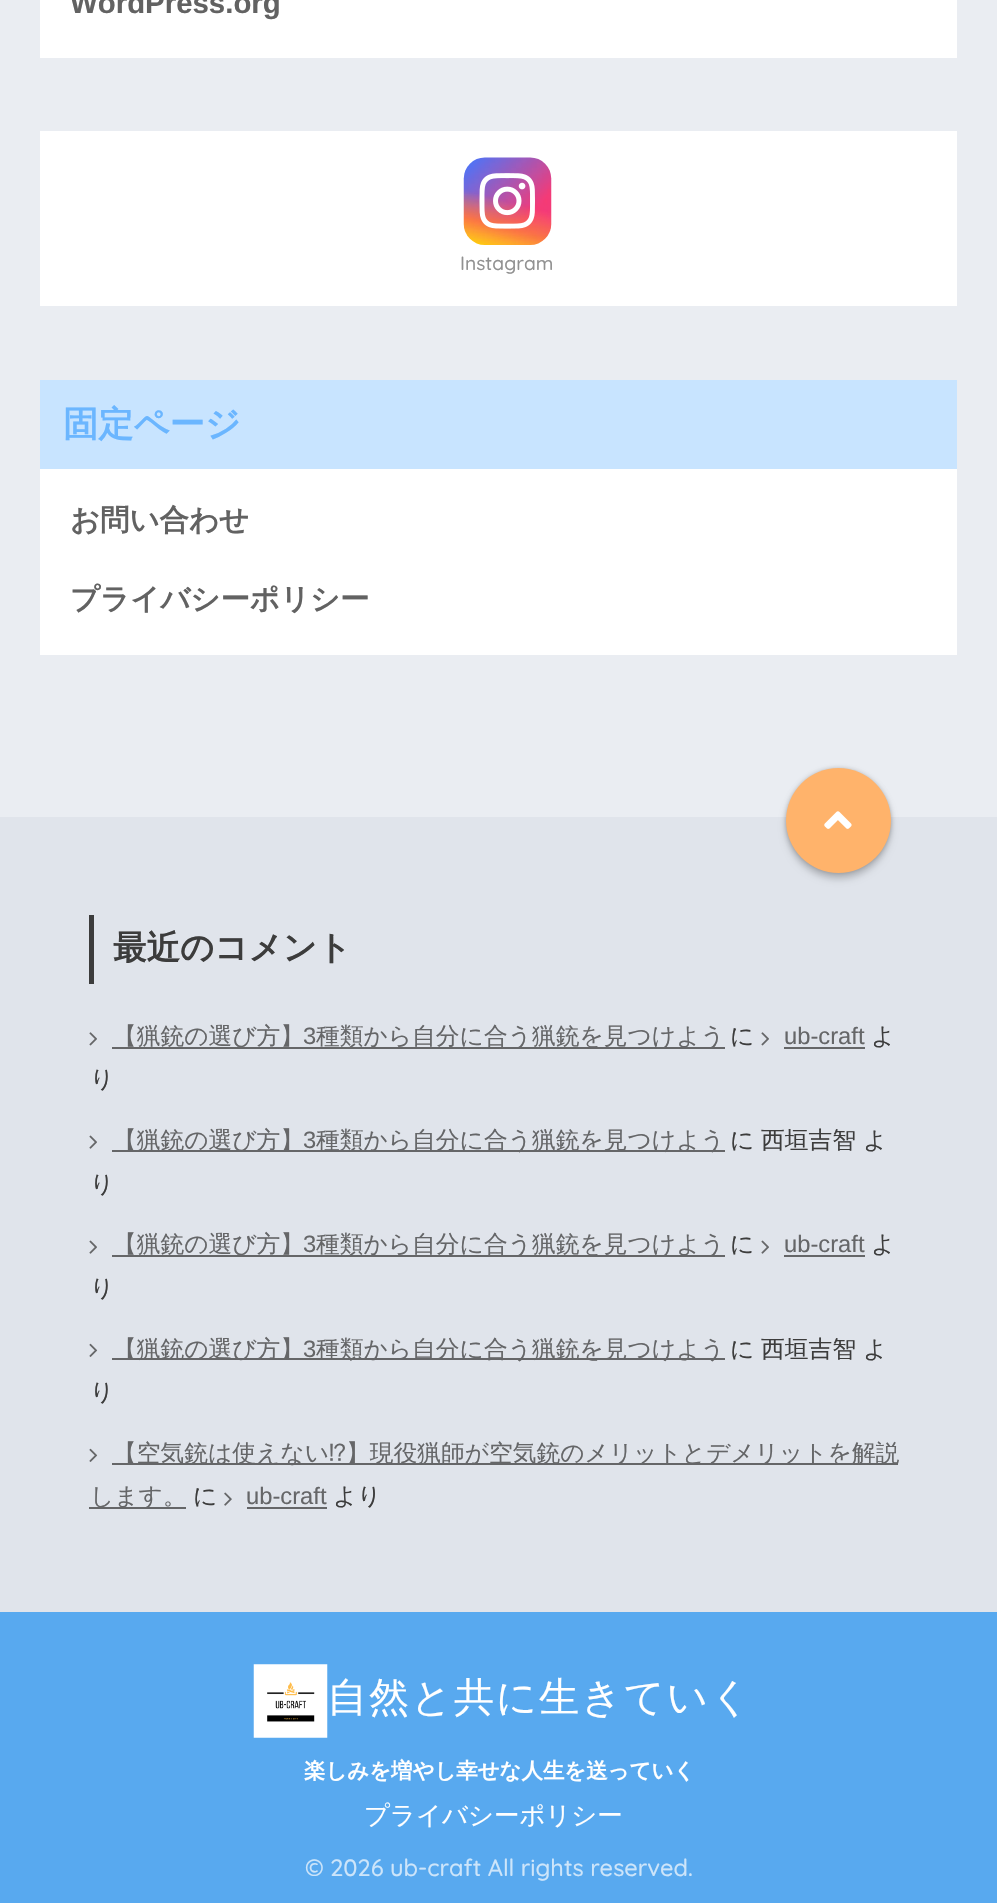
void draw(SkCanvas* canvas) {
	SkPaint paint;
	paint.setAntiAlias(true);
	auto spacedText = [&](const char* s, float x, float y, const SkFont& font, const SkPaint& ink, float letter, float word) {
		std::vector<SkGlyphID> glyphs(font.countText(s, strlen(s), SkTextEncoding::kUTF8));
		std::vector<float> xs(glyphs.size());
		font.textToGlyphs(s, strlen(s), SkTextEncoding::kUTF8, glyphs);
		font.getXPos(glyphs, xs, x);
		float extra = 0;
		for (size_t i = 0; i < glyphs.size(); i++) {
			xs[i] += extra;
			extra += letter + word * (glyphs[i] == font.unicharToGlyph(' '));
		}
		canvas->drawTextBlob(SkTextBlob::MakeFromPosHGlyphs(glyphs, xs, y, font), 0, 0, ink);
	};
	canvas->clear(0xffeaedf2);
	paint.setColor(0xffffffff);
	canvas->drawRect(SkRect::MakeXYWH(40, 0, 917, 58), paint);
	SkFont f1(fontMgr->matchFamilyStyle("Liberation Sans", SkFontStyle::Bold()), 29.4);
	f1.setSubpixel(true);
	paint.setColor(0xff626262);
	canvas->drawString("WordPress.org", 70, 13, f1, paint);
	paint.setColor(0xffffffff);
	canvas->drawRect(SkRect::MakeXYWH(40, 131, 917, 175), paint);
	canvas->drawImageRect(SkImages::DeferredFromEncodedData(SkData::MakeFromFileName("img1.png")), SkRect::MakeXYWH(463, 157, 89, 88), SkSamplingOptions());
	canvas->drawImageRect(SkImages::DeferredFromEncodedData(SkData::MakeFromFileName("img2.png")), SkRect::MakeXYWH(479, 173, 56, 56), SkSamplingOptions());
	SkFont f2(fontMgr->matchFamilyStyle("Quicksand", SkFontStyle(500, SkFontStyle::kNormal_Width, SkFontStyle::kUpright_Slant)), 19.25);
	f2.setSubpixel(true);
	paint.setColor(0xff919191);
	canvas->drawString("Instagram", 460, 270, f2, paint);
	paint.setColor(0xffffffff);
	canvas->drawRect(SkRect::MakeXYWH(40, 469, 917, 186), paint);
	paint.setColor(0xffc8e4ff);
	canvas->drawRect(SkRect::MakeXYWH(40, 380, 917, 89), paint);
	SkFont f3(fontMgr->matchFamilyStyle("WenQuanYi Zen Hei", SkFontStyle::Bold()), 35.25);
	f3.setSubpixel(true);
	paint.setColor(0xff6bb6ff);
	canvas->drawString("固定ページ", 63, 436, f3, paint);
	SkFont f4(fontMgr->matchFamilyStyle("WenQuanYi Zen Hei", SkFontStyle::Bold()), 29.4);
	f4.setSubpixel(true);
	paint.setColor(0xff626262);
	canvas->drawString("お問い合わせ", 70, 530, f4, paint);
	canvas->drawString("プライバシーポリシー", 70, 609, f4, paint);
	paint.setColor(0xffe0e4eb);
	canvas->drawRect(SkRect::MakeXYWH(0, 817, 997, 795), paint);
	paint.setColor(0x33000000);
	paint.setMaskFilter(SkMaskFilter::MakeBlur(kNormal_SkBlurStyle, 2));
	canvas->drawRoundRect(SkRect::MakeXYWH(786, 768, 105, 105), 52.5, 52.5, paint);
	paint.setMaskFilter(nullptr);
	paint.setMaskFilter(SkMaskFilter::MakeBlur(kNormal_SkBlurStyle, 3.5));
	canvas->drawRoundRect(SkRect::MakeXYWH(786, 774, 105, 105), 52.5, 52.5, paint);
	paint.setMaskFilter(nullptr);
	paint.setColor(0xffffb36b);
	canvas->drawCircle(838.5, 820.5, 52.5, paint);
	canvas->drawImageRect(SkImages::DeferredFromEncodedData(SkData::MakeFromFileName("img3.png")), SkRect::MakeXYWH(824, 811, 28, 18), SkSamplingOptions());
	paint.setColor(0xff3c3c3c);
	canvas->drawRect(SkRect::MakeXYWH(89, 915, 5, 69), paint);
	SkFont f5(fontMgr->matchFamilyStyle("WenQuanYi Zen Hei", SkFontStyle::Bold()), 33.5);
	f5.setSubpixel(true);
	canvas->drawString("最近のコメント", 113, 959, f5, paint);
	canvas->drawImageRect(SkImages::DeferredFromEncodedData(SkData::MakeFromFileName("img4.png")), SkRect::MakeXYWH(89, 1032, 8, 14), SkSamplingOptions());
	paint.setColor(0xff656668);
	canvas->drawRect(SkRect::MakeXYWH(112, 1047, 613, 2), paint);
	SkFont f6(fontMgr->matchFamilyStyle("WenQuanYi Zen Hei", SkFontStyle(500, SkFontStyle::kNormal_Width, SkFontStyle::kUpright_Slant)), 23.75);
	f6.setSubpixel(true);
	canvas->drawString("【猟銃の選び方】", 113, 1044, f6, paint);
	SkFont f7(fontMgr->matchFamilyStyle("Liberation Sans", SkFontStyle::Normal()), 23.75);
	f7.setSubpixel(true);
	canvas->drawString("3", 303, 1044, f7, paint);
	canvas->drawString("種類から自分に合う猟銃を見つけよう", 316, 1044, f6, paint);
	paint.setColor(0xff3c3c3c);
	canvas->drawString("に", 730, 1044, f6, paint);
	canvas->drawImageRect(SkImages::DeferredFromEncodedData(SkData::MakeFromFileName("img4.png")), SkRect::MakeXYWH(761, 1032, 8, 14), SkSamplingOptions());
	paint.setColor(0xff656668);
	canvas->drawString("ub-craft", 784, 1044, f7, paint);
	canvas->drawRect(SkRect::MakeXYWH(784, 1047, 81, 2), paint);
	paint.setColor(0xff3c3c3c);
	canvas->drawString("よ", 871, 1044, f6, paint);
	canvas->drawString("り", 90, 1087, f6, paint);
	canvas->drawImageRect(SkImages::DeferredFromEncodedData(SkData::MakeFromFileName("img5.png")), SkRect::MakeXYWH(89, 1135, 8, 14), SkSamplingOptions());
	paint.setColor(0xff656668);
	canvas->drawRect(SkRect::MakeXYWH(112, 1150, 613, 2), paint);
	canvas->drawString("【猟銃の選び方】", 113, 1148, f6, paint);
	canvas->drawString("3", 303, 1148, f7, paint);
	canvas->drawString("種類から自分に合う猟銃を見つけよう", 316, 1148, f6, paint);
	paint.setColor(0xff3c3c3c);
	canvas->drawString("に", 730, 1148, f6, paint);
	canvas->drawString("西垣吉智", 761, 1148, f6, paint);
	canvas->drawString("よ", 863, 1148, f6, paint);
	canvas->drawString("り", 90, 1192, f6, paint);
	canvas->drawImageRect(SkImages::DeferredFromEncodedData(SkData::MakeFromFileName("img5.png")), SkRect::MakeXYWH(89, 1240, 8, 14), SkSamplingOptions());
	paint.setColor(0xff656668);
	canvas->drawRect(SkRect::MakeXYWH(112, 1255, 613, 2), paint);
	canvas->drawString("【猟銃の選び方】", 113, 1252, f6, paint);
	canvas->drawString("3", 303, 1252, f7, paint);
	canvas->drawString("種類から自分に合う猟銃を見つけよう", 316, 1252, f6, paint);
	paint.setColor(0xff3c3c3c);
	canvas->drawString("に", 730, 1252, f6, paint);
	canvas->drawImageRect(SkImages::DeferredFromEncodedData(SkData::MakeFromFileName("img5.png")), SkRect::MakeXYWH(761, 1240, 8, 14), SkSamplingOptions());
	paint.setColor(0xff656668);
	canvas->drawString("ub-craft", 784, 1252, f7, paint);
	canvas->drawRect(SkRect::MakeXYWH(784, 1255, 81, 2), paint);
	paint.setColor(0xff3c3c3c);
	canvas->drawString("よ", 871, 1252, f6, paint);
	canvas->drawString("り", 90, 1296, f6, paint);
	canvas->drawImageRect(SkImages::DeferredFromEncodedData(SkData::MakeFromFileName("img6.png")), SkRect::MakeXYWH(89, 1343, 9, 14), SkSamplingOptions());
	paint.setColor(0xff656668);
	canvas->drawRect(SkRect::MakeXYWH(112, 1358, 613, 2), paint);
	canvas->drawString("【猟銃の選び方】", 113, 1357, f6, paint);
	canvas->drawString("3", 303, 1357, f7, paint);
	canvas->drawString("種類から自分に合う猟銃を見つけよう", 316, 1357, f6, paint);
	paint.setColor(0xff3c3c3c);
	canvas->drawString("に", 730, 1357, f6, paint);
	canvas->drawString("西垣吉智", 761, 1357, f6, paint);
	canvas->drawString("よ", 863, 1357, f6, paint);
	canvas->drawString("り", 90, 1400, f6, paint);
	canvas->drawImageRect(SkImages::DeferredFromEncodedData(SkData::MakeFromFileName("img6.png")), SkRect::MakeXYWH(89, 1448, 9, 14), SkSamplingOptions());
	paint.setColor(0xff656668);
	canvas->drawRect(SkRect::MakeXYWH(112, 1463, 786, 2), paint);
	canvas->drawString("【空気銃は使えない", 113, 1461, f6, paint);
	SkFont f8(fontMgr->matchFamilyStyle("IPAPGothic", SkFontStyle::Normal()), 23.75);
	f8.setSubpixel(true);
	canvas->drawString("⁉", 328, 1461, f8, paint);
	canvas->drawString("】現役猟師が空気銃のメリットとデメリットを解説", 346, 1461, f6, paint);
	canvas->drawRect(SkRect::MakeXYWH(89, 1507, 97, 2), paint);
	canvas->drawString("します。", 90, 1504, f6, paint);
	paint.setColor(0xff3c3c3c);
	canvas->drawString("に", 193, 1504, f6, paint);
	canvas->drawImageRect(SkImages::DeferredFromEncodedData(SkData::MakeFromFileName("img7.png")), SkRect::MakeXYWH(224, 1492, 8, 14), SkSamplingOptions());
	paint.setColor(0xff656668);
	canvas->drawString("ub-craft", 246, 1504, f7, paint);
	canvas->drawRect(SkRect::MakeXYWH(247, 1507, 80, 2), paint);
	paint.setColor(0xff3c3c3c);
	canvas->drawString("より", 333, 1504, f6, paint);
	paint.setColor(0xff58a9ef);
	canvas->drawRect(SkRect::MakeXYWH(0, 1612, 997, 291), paint);
	canvas->drawImageRect(SkImages::DeferredFromEncodedData(SkData::MakeFromFileName("img8.png")), SkRect::MakeXYWH(253, 1664, 75, 74), SkSamplingOptions());
	SkFont f9(fontMgr->matchFamilyStyle("WenQuanYi Zen Hei", SkFontStyle(500, SkFontStyle::kNormal_Width, SkFontStyle::kUpright_Slant)), 40.25);
	f9.setSubpixel(true);
	paint.setColor(0xffffffff);
	spacedText("自然と共に生きていく", 327, 1711, f9, paint, 1.75, 0);
	SkFont f10(fontMgr->matchFamilyStyle("WenQuanYi Zen Hei", SkFontStyle::Bold()), 21.4);
	f10.setSubpixel(true);
	canvas->drawString("楽しみを増やし幸せな人生を送っていく", 304, 1778, f10, paint);
	SkFont f11(fontMgr->matchFamilyStyle("WenQuanYi Zen Hei", SkFontStyle(500, SkFontStyle::kNormal_Width, SkFontStyle::kUpright_Slant)), 25.4);
	f11.setSubpixel(true);
	canvas->drawString("プライバシーポリシー", 364, 1824, f11, paint);
	SkFont f12(fontMgr->matchFamilyStyle("Quicksand", SkFontStyle(500, SkFontStyle::kNormal_Width, SkFontStyle::kUpright_Slant)), 23.6);
	f12.setSubpixel(true);
	paint.setColor(0xffcde5fa);
	canvas->drawString("© 2026 ub-craft All rights reserved.", 305, 1876, f12, paint);
}
